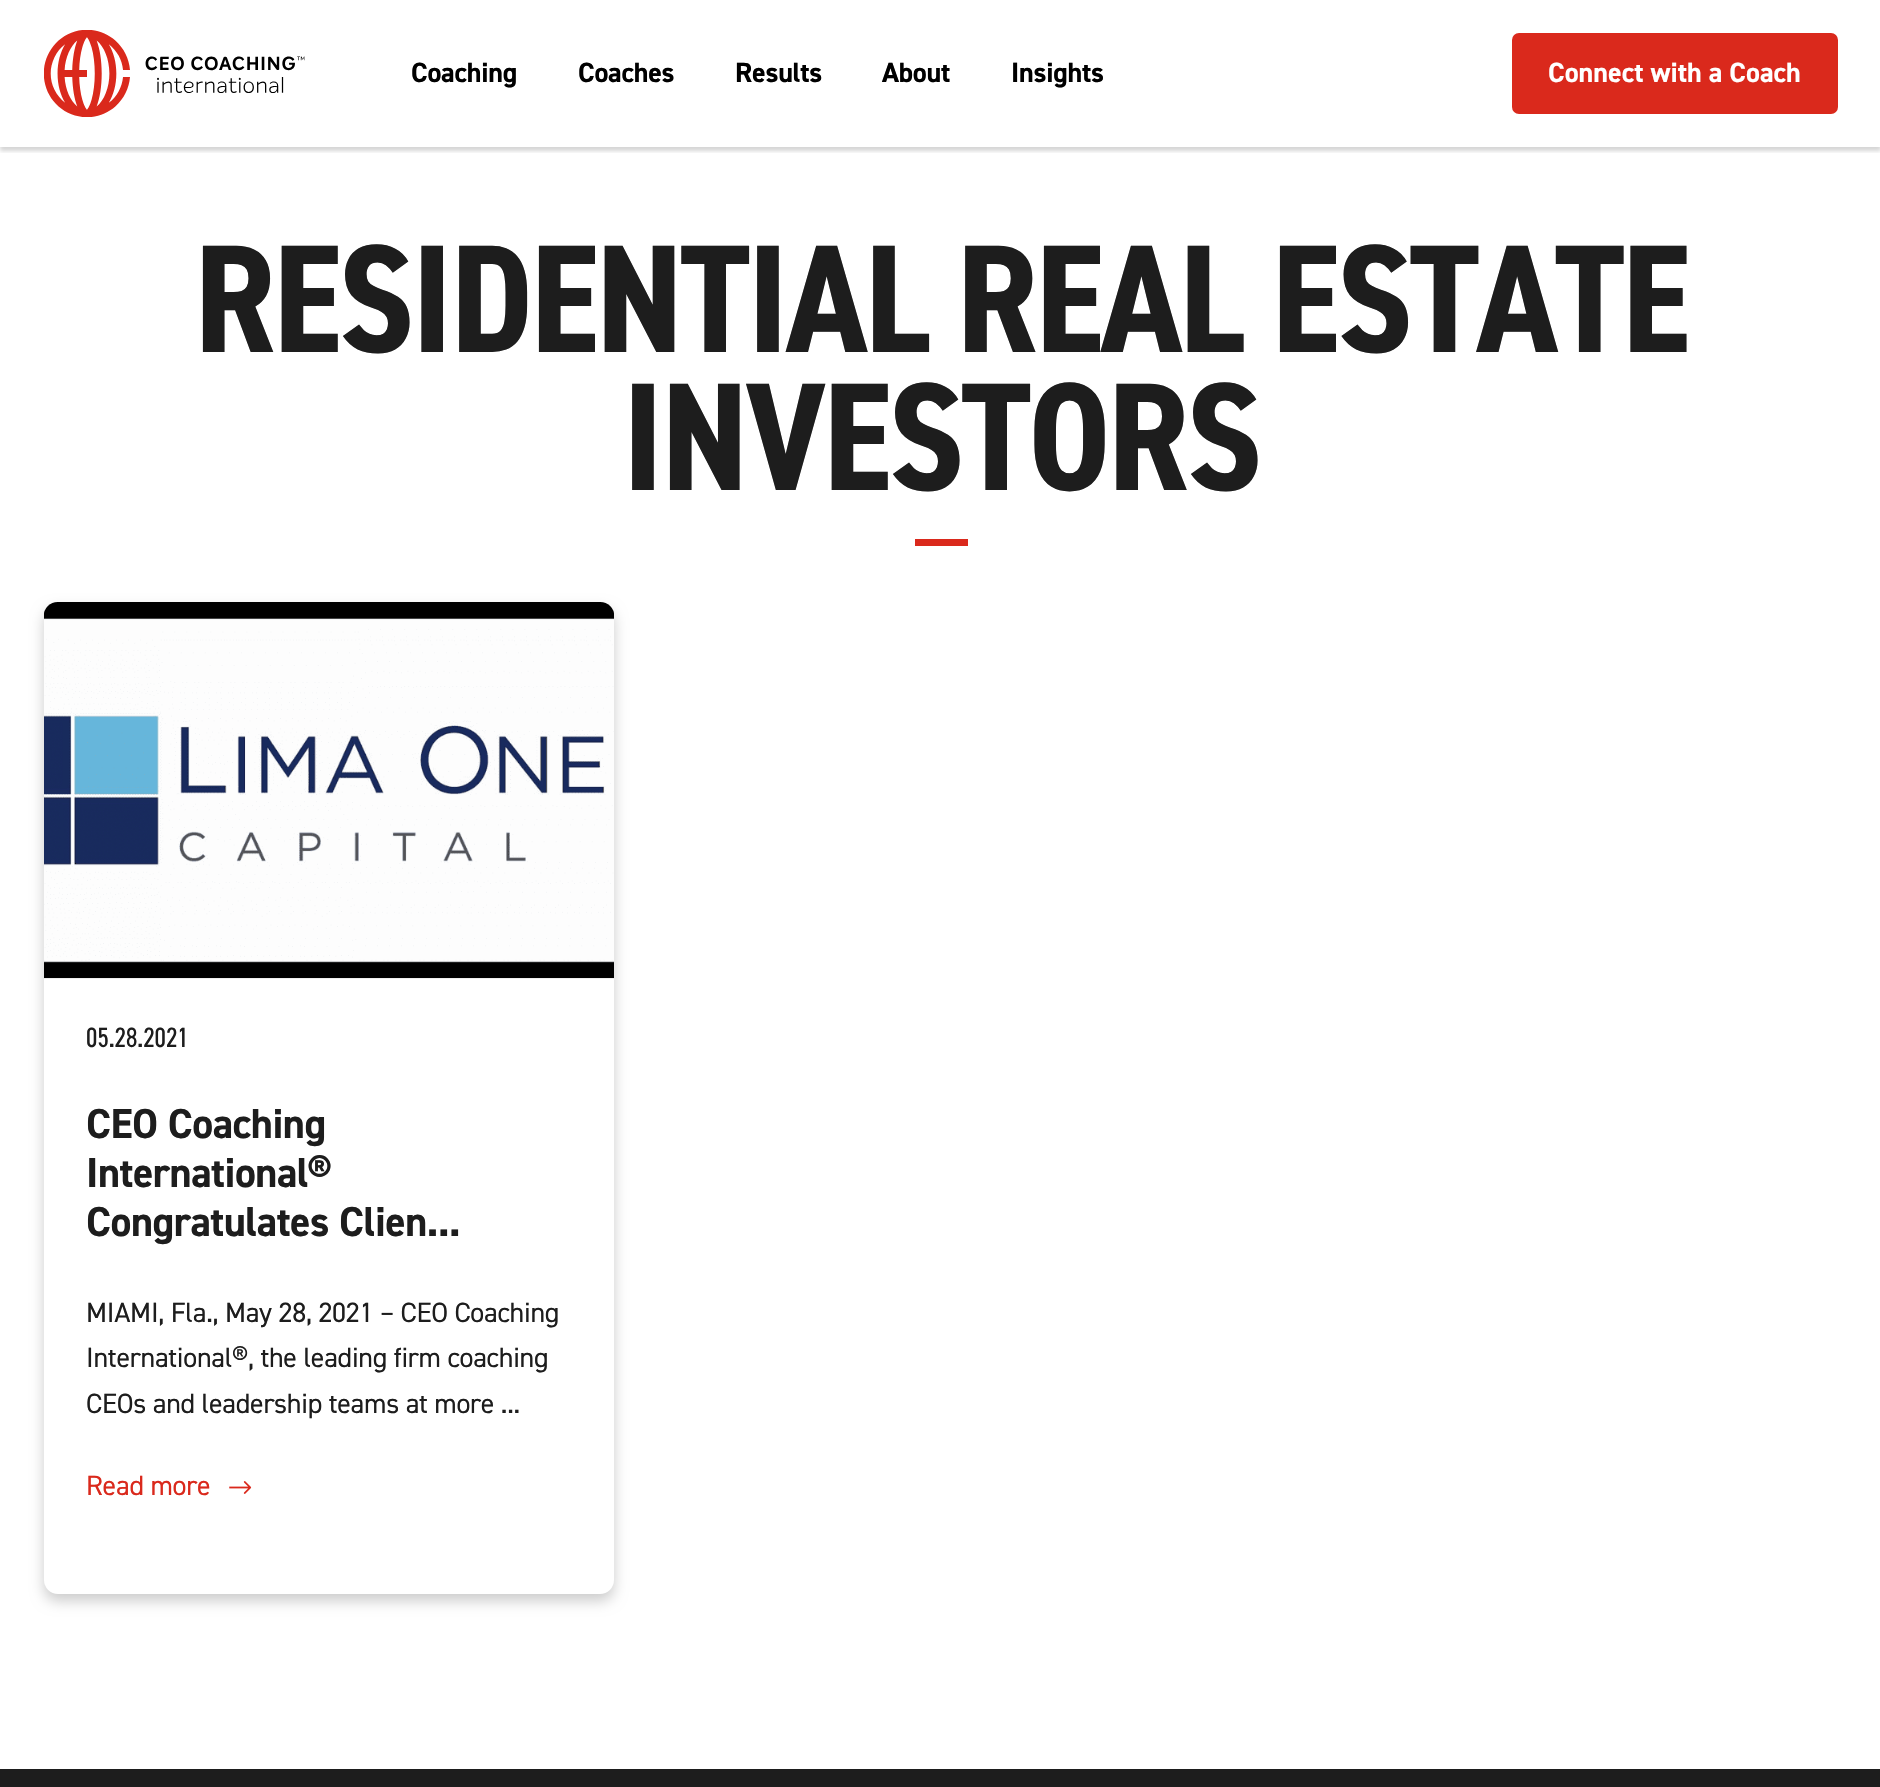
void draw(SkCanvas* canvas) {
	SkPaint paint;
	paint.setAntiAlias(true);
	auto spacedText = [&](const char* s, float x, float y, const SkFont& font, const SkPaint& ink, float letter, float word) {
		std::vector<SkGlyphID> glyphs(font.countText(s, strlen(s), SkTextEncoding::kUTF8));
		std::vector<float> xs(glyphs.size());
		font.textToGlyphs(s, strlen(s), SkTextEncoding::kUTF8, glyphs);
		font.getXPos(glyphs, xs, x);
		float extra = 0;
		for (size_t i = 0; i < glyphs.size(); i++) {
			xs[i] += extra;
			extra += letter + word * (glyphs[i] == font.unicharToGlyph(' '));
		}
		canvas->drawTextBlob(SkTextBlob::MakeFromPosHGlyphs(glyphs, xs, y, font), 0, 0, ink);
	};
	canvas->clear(0xffffffff);
	canvas->save();
	canvas->clipRect(SkRect::MakeXYWH(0, 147, 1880, 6));
	paint.setColor(0x29000000);
	paint.setMaskFilter(SkMaskFilter::MakeBlur(kNormal_SkBlurStyle, 2));
	canvas->drawRect(SkRect::MakeXYWH(0, 4, 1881, 147), paint);
	paint.setMaskFilter(nullptr);
	canvas->restore();
	canvas->drawImageRect(SkImages::DeferredFromEncodedData(SkData::MakeFromFileName("img1.png")), SkRect::MakeXYWH(44, 30, 261, 87), SkSamplingOptions());
	SkFont f1(fontMgr->matchFamilyStyle("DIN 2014", SkFontStyle::Bold()), 28);
	f1.setSubpixel(true);
	paint.setColor(0xff000000);
	spacedText("Coaching", 411, 82, f1, paint, -0.25, 0);
	spacedText("Coaches", 578, 82, f1, paint, -0.25, 0);
	spacedText("Results", 735, 82, f1, paint, -0.25, 0);
	spacedText("About", 882, 82, f1, paint, -0.25, 0);
	spacedText("Insights", 1011, 82, f1, paint, -0.25, 0);
	paint.setColor(0xffda291c);
	canvas->drawRoundRect(SkRect::MakeXYWH(1513, 34, 324, 79), 6, 6, paint);
	paint.setStroke(true);
	paint.setStrokeWidth(2);
	canvas->drawRoundRect(SkRect::MakeXYWH(1513, 34, 324, 79), 6, 6, paint);
	paint.setStroke(false);
	paint.setColor(0xffffffff);
	canvas->drawString("Connect with a Coach", 1548, 82, f1, paint);
	SkFont f2(fontMgr->matchFamilyStyle("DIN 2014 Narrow", SkFontStyle::Bold()), 154);
	f2.setSubpixel(true);
	paint.setColor(0xff1d1d1d);
	spacedText("RESIDENTIAL REAL ESTATE", 194, 352, f2, paint, -3.1, 0);
	spacedText("INVESTORS", 622, 490, f2, paint, -3.1, 0);
	paint.setColor(0xffda291c);
	canvas->drawRect(SkRect::MakeXYWH(915, 539, 53, 7), paint);
	paint.setColor(0x33000000);
	paint.setMaskFilter(SkMaskFilter::MakeBlur(kNormal_SkBlurStyle, 7));
	canvas->drawRoundRect(SkRect::MakeXYWH(44, 609, 570, 992), 14, 14, paint);
	paint.setMaskFilter(nullptr);
	paint.setColor(0xffffffff);
	canvas->drawRoundRect(SkRect::MakeXYWH(44, 602, 570, 992), 14, 14, paint);
	canvas->drawImageRect(SkImages::DeferredFromEncodedData(SkData::MakeFromFileName("img2.png")), SkRect::MakeXYWH(44, 602, 570, 377), SkSamplingOptions());
	SkFont f3(fontMgr->matchFamilyStyle("DIN 2014 Narrow", SkFontStyle::Normal()), 28);
	f3.setSubpixel(true);
	paint.setColor(0xff1d1d1d);
	canvas->drawString("05.28.2021", 86, 1047, f3, paint);
	SkFont f4(fontMgr->matchFamilyStyle("DIN 2014", SkFontStyle::Bold()), 42);
	f4.setSubpixel(true);
	spacedText("CEO Coaching", 86, 1138, f4, paint, -0.5, 0);
	spacedText("International®", 86, 1187, f4, paint, -0.5, 0);
	spacedText("Congratulates Clien...", 86, 1236, f4, paint, -0.5, 0);
	SkFont f5(fontMgr->matchFamilyStyle("DIN 2014", SkFontStyle::Normal()), 28);
	f5.setSubpixel(true);
	spacedText("MIAMI, Fla., May 28, 2021 – CEO Coaching", 86, 1322, f5, paint, -0.3, 0);
	spacedText("International®, the leading firm coaching", 86, 1367, f5, paint, -0.3, 0);
	spacedText("CEOs and leadership teams at more ...", 86, 1413, f5, paint, -0.3, 0);
	paint.setColor(0xffda291c);
	spacedText("Read more", 86, 1495, f5, paint, -0.3, 0);
	canvas->drawImageRect(SkImages::DeferredFromEncodedData(SkData::MakeFromFileName("img3.png")), SkRect::MakeXYWH(229, 1481, 23, 13), SkSamplingOptions());
	paint.setColor(0xff1d1d1d);
	canvas->drawRect(SkRect::MakeXYWH(0, 1769, 1880, 18), paint);
}
